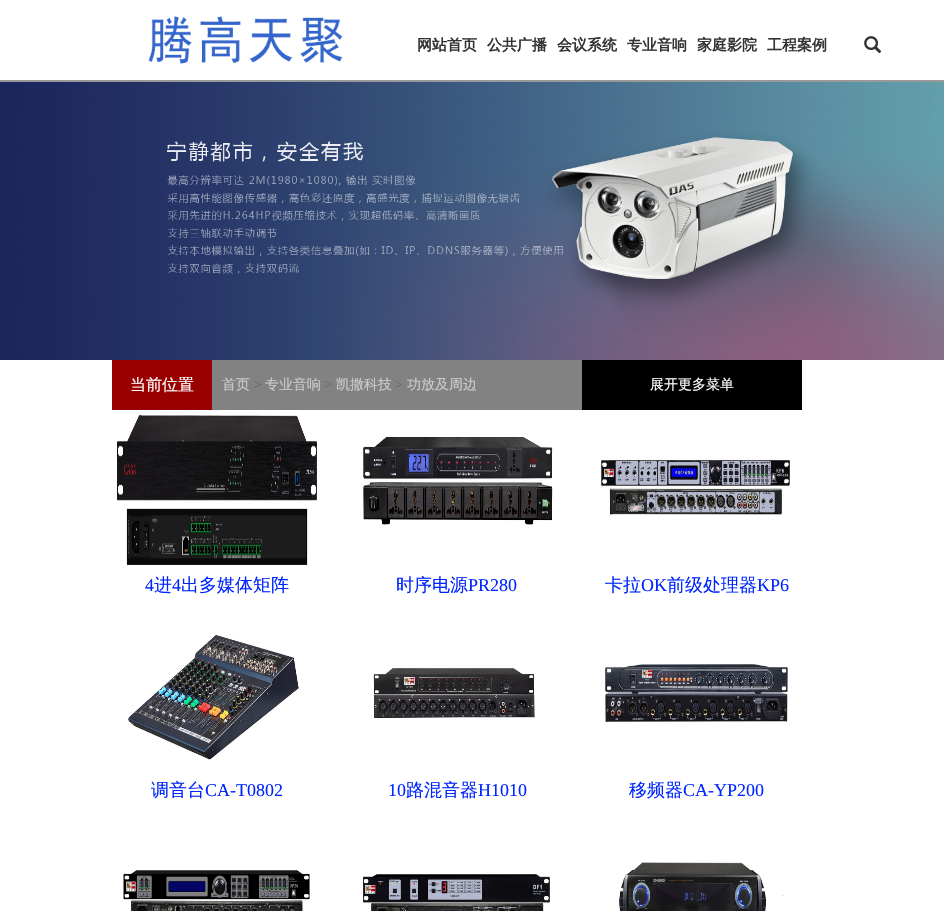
void draw(SkCanvas* canvas) {
	SkPaint paint;
	paint.setAntiAlias(true);
	canvas->clear(0xffffffff);
	paint.setColor(0xff999999);
	canvas->drawRect(SkRect::MakeXYWH(0, 80, 944, 2), paint);
	canvas->drawImageRect(SkImages::DeferredFromEncodedData(SkData::MakeFromFileName("img1.png")), SkRect::MakeXYWH(148, 16, 195, 48), SkSamplingOptions());
	canvas->drawImageRect(SkImages::DeferredFromEncodedData(SkData::MakeFromFileName("img2.png")), SkRect::MakeXYWH(864, 36, 18, 18), SkSamplingOptions());
	SkFont f1(fontMgr->matchFamilyStyle("WenQuanYi Zen Hei", SkFontStyle::Bold()), 15);
	f1.setSubpixel(true);
	paint.setColor(0xff333333);
	canvas->drawString("网站首页", 417, 50, f1, paint);
	canvas->drawString("公共广播", 487, 50, f1, paint);
	canvas->drawString("会议系统", 557, 50, f1, paint);
	canvas->drawString("专业音响", 627, 50, f1, paint);
	canvas->drawString("家庭影院", 697, 50, f1, paint);
	canvas->drawString("工程案例", 767, 50, f1, paint);
	canvas->drawImageRect(SkImages::DeferredFromEncodedData(SkData::MakeFromFileName("img3.png")), SkRect::MakeXYWH(0, 82, 944, 278), SkSamplingOptions());
	paint.setColor(0xff828282);
	canvas->drawRect(SkRect::MakeXYWH(212, 360, 370, 50), paint);
	paint.setColor(0xff990000);
	canvas->drawRect(SkRect::MakeXYWH(112, 360, 100, 50), paint);
	SkFont f2(fontMgr->matchFamilyStyle("WenQuanYi Zen Hei", SkFontStyle(500, SkFontStyle::kNormal_Width, SkFontStyle::kUpright_Slant)), 16);
	f2.setSubpixel(true);
	paint.setColor(0xffffffff);
	canvas->drawString("当前位置", 130, 390, f2, paint);
	SkFont f3(fontMgr->matchFamilyStyle("WenQuanYi Zen Hei", SkFontStyle(500, SkFontStyle::kNormal_Width, SkFontStyle::kUpright_Slant)), 14);
	f3.setSubpixel(true);
	paint.setColor(0xffcccccc);
	canvas->drawString("首页", 222, 389, f3, paint);
	SkFont f4(fontMgr->matchFamilyStyle("Liberation Serif", SkFontStyle::Normal()), 14);
	f4.setSubpixel(true);
	paint.setColor(0xff666666);
	canvas->drawString(">", 254, 389, f4, paint);
	paint.setColor(0xffcccccc);
	canvas->drawString("专业音响", 265, 389, f3, paint);
	paint.setColor(0xff666666);
	canvas->drawString(">", 324, 389, f4, paint);
	paint.setColor(0xffcccccc);
	canvas->drawString("凯撒科技", 336, 389, f3, paint);
	paint.setColor(0xff666666);
	canvas->drawString(">", 395, 389, f4, paint);
	paint.setColor(0xffcccccc);
	canvas->drawString("功放及周边", 407, 389, f3, paint);
	paint.setColor(0xff000000);
	canvas->drawRect(SkRect::MakeXYWH(582, 360, 220, 50), paint);
	paint.setColor(0xffffffff);
	canvas->drawString("展开更多菜单", 650, 389, f3, paint);
	canvas->drawImageRect(SkImages::DeferredFromEncodedData(SkData::MakeFromFileName("img4.png")), SkRect::MakeXYWH(117, 415, 200, 150), SkSamplingOptions());
	SkFont f5(fontMgr->matchFamilyStyle("Liberation Serif", SkFontStyle::Normal()), 18);
	f5.setSubpixel(true);
	paint.setColor(0xff0026ff);
	canvas->drawString("4", 145, 591, f5, paint);
	SkFont f6(fontMgr->matchFamilyStyle("WenQuanYi Zen Hei", SkFontStyle(500, SkFontStyle::kNormal_Width, SkFontStyle::kUpright_Slant)), 18);
	f6.setSubpixel(true);
	canvas->drawString("进", 154, 591, f6, paint);
	canvas->drawString("4", 172, 591, f5, paint);
	canvas->drawString("出多媒体矩阵", 181, 591, f6, paint);
	canvas->drawImageRect(SkImages::DeferredFromEncodedData(SkData::MakeFromFileName("img5.png")), SkRect::MakeXYWH(363, 437, 190, 88), SkSamplingOptions());
	canvas->drawString("时序电源", 396, 591, f6, paint);
	canvas->drawString("PR280", 468, 591, f5, paint);
	canvas->drawImageRect(SkImages::DeferredFromEncodedData(SkData::MakeFromFileName("img6.png")), SkRect::MakeXYWH(600, 458, 190, 57), SkSamplingOptions());
	canvas->drawString("卡拉", 605, 591, f6, paint);
	canvas->drawString("OK", 641, 591, f5, paint);
	canvas->drawString("前级处理器", 667, 591, f6, paint);
	canvas->drawString("KP6", 757, 591, f5, paint);
	canvas->drawImageRect(SkImages::DeferredFromEncodedData(SkData::MakeFromFileName("img7.png")), SkRect::MakeXYWH(128, 635, 171, 125), SkSamplingOptions());
	canvas->drawString("调音台", 151, 796, f6, paint);
	canvas->drawString("CA-T0802", 205, 796, f5, paint);
	canvas->drawImageRect(SkImages::DeferredFromEncodedData(SkData::MakeFromFileName("img8.png")), SkRect::MakeXYWH(373, 668, 162, 50), SkSamplingOptions());
	canvas->drawString("10", 388, 796, f5, paint);
	canvas->drawString("路混音器", 406, 796, f6, paint);
	canvas->drawString("H1010", 478, 796, f5, paint);
	canvas->drawImageRect(SkImages::DeferredFromEncodedData(SkData::MakeFromFileName("img9.png")), SkRect::MakeXYWH(604, 663, 189, 61), SkSamplingOptions());
	canvas->drawString("移频器", 629, 796, f6, paint);
	canvas->drawString("CA-YP200", 683, 796, f5, paint);
	canvas->drawImageRect(SkImages::DeferredFromEncodedData(SkData::MakeFromFileName("img10.png")), SkRect::MakeXYWH(123, 870, 187, 41), SkSamplingOptions());
	canvas->drawImageRect(SkImages::DeferredFromEncodedData(SkData::MakeFromFileName("img11.png")), SkRect::MakeXYWH(363, 874, 187, 37), SkSamplingOptions());
	canvas->drawImageRect(SkImages::DeferredFromEncodedData(SkData::MakeFromFileName("img12.png")), SkRect::MakeXYWH(619, 862, 165, 49), SkSamplingOptions());
}
